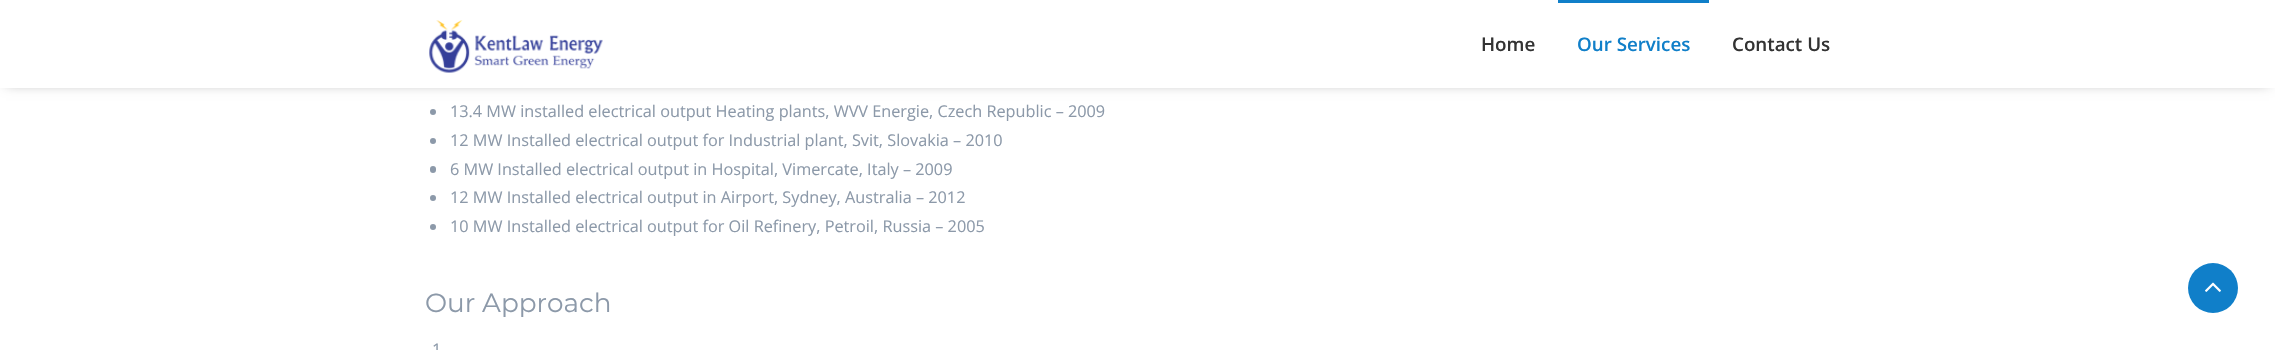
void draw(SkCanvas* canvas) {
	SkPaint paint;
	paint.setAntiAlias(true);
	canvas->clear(0xffffffff);
	paint.setColor(0x66000000);
	paint.setMaskFilter(SkMaskFilter::MakeBlur(kNormal_SkBlurStyle, 6));
	canvas->drawRect(SkRect::MakeXYWH(6, 8, 2263, 75), paint);
	paint.setMaskFilter(nullptr);
	paint.setColor(0xffffffff);
	canvas->drawRect(SkRect::MakeXYWH(0, 0, 2275, 88), paint);
	canvas->drawImageRect(SkImages::DeferredFromEncodedData(SkData::MakeFromFileName("img1.png")), SkRect::MakeXYWH(429, 20, 174, 53), SkSamplingOptions());
	SkFont f1(fontMgr->matchFamilyStyle("Open Sans", SkFontStyle(600, SkFontStyle::kNormal_Width, SkFontStyle::kUpright_Slant)), 18.75);
	f1.setSubpixel(true);
	paint.setColor(0xff333333);
	canvas->drawString("Home", 1481, 51, f1, paint);
	paint.setColor(0xff107fc9);
	canvas->drawRect(SkRect::MakeXYWH(1558, 0, 151, 3), paint);
	canvas->drawString("Our Services", 1577, 51, f1, paint);
	paint.setColor(0xff333333);
	canvas->drawString("Contact Us", 1732, 51, f1, paint);
	paint.setColor(0xff8c99a9);
	canvas->drawCircle(433, 112, 3, paint);
	SkFont f2(fontMgr->matchFamilyStyle("Open Sans", SkFontStyle::Normal()), 16.25);
	f2.setSubpixel(true);
	canvas->drawString("13.4 MW installed electrical output Heating plants, WVV Energie, Czech Republic – 2009", 450, 117, f2, paint);
	canvas->drawCircle(433, 141, 3, paint);
	canvas->drawString("12 MW Installed electrical output for Industrial plant, Svit, Slovakia – 2010", 450, 146, f2, paint);
	canvas->drawRoundRect(SkRect::MakeXYWH(430, 166, 6, 7), 3, 3, paint);
	canvas->drawString("6 MW Installed electrical output in Hospital, Vimercate, Italy – 2009", 450, 175, f2, paint);
	canvas->drawCircle(433, 198, 3, paint);
	canvas->drawString("12 MW Installed electrical output in Airport, Sydney, Australia – 2012", 450, 203, f2, paint);
	canvas->drawCircle(433, 227, 3, paint);
	canvas->drawString("10 MW Installed electrical output for Oil Refinery, Petroil, Russia – 2005", 450, 232, f2, paint);
	SkFont f3(fontMgr->matchFamilyStyle("Montserrat", SkFontStyle::Normal()), 26.25);
	f3.setSubpixel(true);
	canvas->drawString("Our Approach", 425, 312, f3, paint);
	canvas->drawString("1", 432, 355, f2, paint);
	paint.setColor(0xff107fc9);
	canvas->drawCircle(2213, 288, 25, paint);
	canvas->drawImageRect(SkImages::DeferredFromEncodedData(SkData::MakeFromFileName("img2.png")), SkRect::MakeXYWH(2205, 282, 16, 10), SkSamplingOptions());
}
